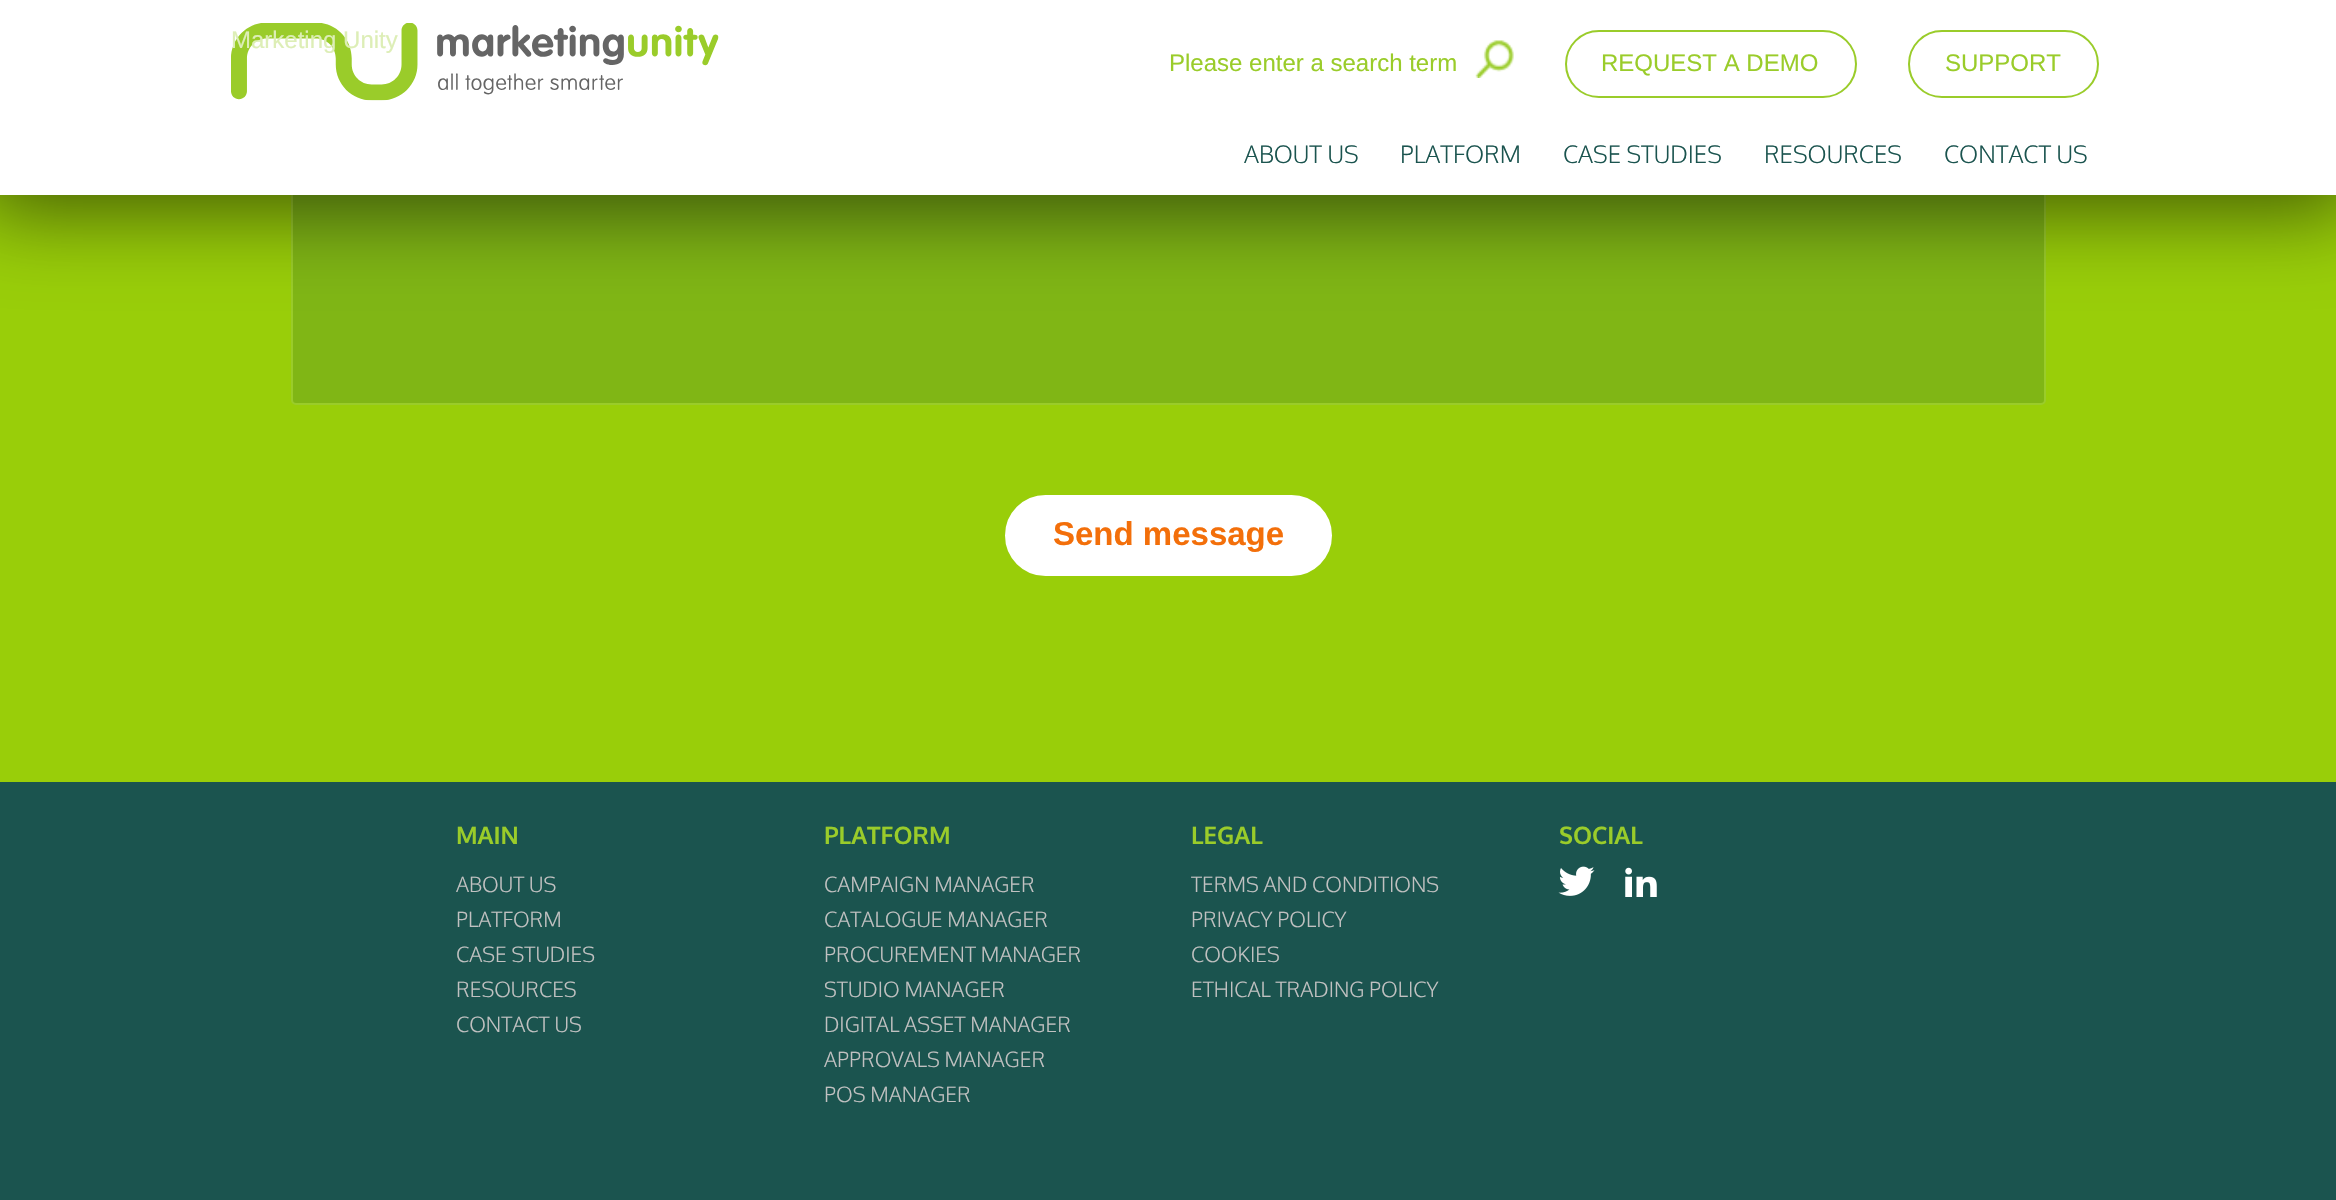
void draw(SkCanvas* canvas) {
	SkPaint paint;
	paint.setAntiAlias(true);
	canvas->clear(0xff99ce09);
	paint.setColor(0xff80b615);
	canvas->drawRoundRect(SkRect::MakeXYWH(292, 106, 1753, 298), 4, 4, paint);
	paint.setStroke(true);
	paint.setStrokeWidth(2);
	paint.setColor(0xff9acc2a);
	canvas->drawRoundRect(SkRect::MakeXYWH(292, 106, 1753, 298), 4, 4, paint);
	paint.setStroke(false);
	paint.setColor(0x94000000);
	paint.setMaskFilter(SkMaskFilter::MakeBlur(kNormal_SkBlurStyle, 42));
	canvas->drawRect(SkRect::MakeXYWH(-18, -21, 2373, 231), paint);
	paint.setMaskFilter(nullptr);
	paint.setColor(0xffffffff);
	canvas->drawRect(SkRect::MakeXYWH(0, 0, 2336, 195), paint);
	canvas->drawImageRect(SkImages::DeferredFromEncodedData(SkData::MakeFromFileName("img1.png")), SkRect::MakeXYWH(231, 23, 488, 78), SkSamplingOptions());
	SkFont f1(fontMgr->matchFamilyStyle("Liberation Sans", SkFontStyle::Normal()), 24);
	f1.setSubpixel(true);
	paint.setColor(0xffddeeb6);
	canvas->drawString("Marketing Unity", 231, 48, f1, paint);
	paint.setColor(0xff9acc2a);
	canvas->drawString("Please enter a search term", 1169, 71, f1, paint);
	canvas->drawImageRect(SkImages::DeferredFromEncodedData(SkData::MakeFromFileName("img2.png")), SkRect::MakeXYWH(1475, 40, 39, 38), SkSamplingOptions());
	paint.setStroke(true);
	canvas->drawRoundRect(SkRect::MakeXYWH(1566, 31, 290, 66), 33, 33, paint);
	paint.setStroke(false);
	canvas->drawString("REQUEST A DEMO", 1601, 71, f1, paint);
	paint.setStroke(true);
	canvas->drawRoundRect(SkRect::MakeXYWH(1909, 31, 189, 66), 33, 33, paint);
	paint.setStroke(false);
	canvas->drawString("SUPPORT", 1945, 71, f1, paint);
	SkFont f2(fontMgr->matchFamilyStyle("Oxygen", SkFontStyle(300, SkFontStyle::kNormal_Width, SkFontStyle::kUpright_Slant)), 24);
	f2.setSubpixel(true);
	paint.setColor(0xff1b544f);
	canvas->drawString("ABOUT US", 1244, 163, f2, paint);
	canvas->drawString("PLATFORM", 1400, 163, f2, paint);
	canvas->drawString("CASE STUDIES", 1563, 163, f2, paint);
	canvas->drawString("RESOURCES", 1764, 163, f2, paint);
	canvas->drawString("CONTACT US", 1944, 163, f2, paint);
	paint.setColor(0xffffffff);
	canvas->drawRoundRect(SkRect::MakeXYWH(1006.5, 496.5, 324, 78), 39, 39, paint);
	paint.setStroke(true);
	paint.setStrokeWidth(3);
	canvas->drawRoundRect(SkRect::MakeXYWH(1006.5, 496.5, 324, 78), 39, 39, paint);
	SkFont f3(fontMgr->matchFamilyStyle("Liberation Sans", SkFontStyle::Bold()), 33);
	f3.setSubpixel(true);
	paint.setStroke(false);
	paint.setColor(0xfff36f0a);
	canvas->drawString("Send message", 1053, 545, f3, paint);
	paint.setColor(0xff1b544f);
	canvas->drawRect(SkRect::MakeXYWH(0, 782, 2336, 418), paint);
	SkFont f4(fontMgr->matchFamilyStyle("Oxygen", SkFontStyle::Bold()), 24);
	f4.setSubpixel(true);
	paint.setColor(0xff9acc2a);
	canvas->drawString("MAIN", 456, 844, f4, paint);
	SkFont f5(fontMgr->matchFamilyStyle("Oxygen", SkFontStyle(300, SkFontStyle::kNormal_Width, SkFontStyle::kUpright_Slant)), 21);
	f5.setSubpixel(true);
	paint.setColor(0xffc1c1c1);
	canvas->drawString("ABOUT US", 456, 892, f5, paint);
	canvas->drawString("PLATFORM", 456, 927, f5, paint);
	canvas->drawString("CASE STUDIES", 456, 962, f5, paint);
	canvas->drawString("RESOURCES", 456, 997, f5, paint);
	canvas->drawString("CONTACT US", 456, 1032, f5, paint);
	paint.setColor(0xff9acc2a);
	canvas->drawString("PLATFORM", 824, 844, f4, paint);
	paint.setColor(0xffc1c1c1);
	canvas->drawString("CAMPAIGN MANAGER", 824, 892, f5, paint);
	canvas->drawString("CATALOGUE MANAGER", 824, 927, f5, paint);
	canvas->drawString("PROCUREMENT MANAGER", 824, 962, f5, paint);
	canvas->drawString("STUDIO MANAGER", 824, 997, f5, paint);
	canvas->drawString("DIGITAL ASSET MANAGER", 824, 1032, f5, paint);
	canvas->drawString("APPROVALS MANAGER", 824, 1067, f5, paint);
	canvas->drawString("POS MANAGER", 824, 1102, f5, paint);
	paint.setColor(0xff9acc2a);
	canvas->drawString("LEGAL", 1191, 844, f4, paint);
	paint.setColor(0xffc1c1c1);
	canvas->drawString("TERMS AND CONDITIONS", 1191, 892, f5, paint);
	canvas->drawString("PRIVACY POLICY", 1191, 927, f5, paint);
	canvas->drawString("COOKIES", 1191, 962, f5, paint);
	canvas->drawString("ETHICAL TRADING POLICY", 1191, 997, f5, paint);
	paint.setColor(0xff9acc2a);
	canvas->drawString("SOCIAL", 1559, 844, f4, paint);
	canvas->drawImageRect(SkImages::DeferredFromEncodedData(SkData::MakeFromFileName("img3.png")), SkRect::MakeXYWH(1558, 866, 37, 30), SkSamplingOptions());
	canvas->drawImageRect(SkImages::DeferredFromEncodedData(SkData::MakeFromFileName("img4.png")), SkRect::MakeXYWH(1625, 867, 32, 30), SkSamplingOptions());
}
